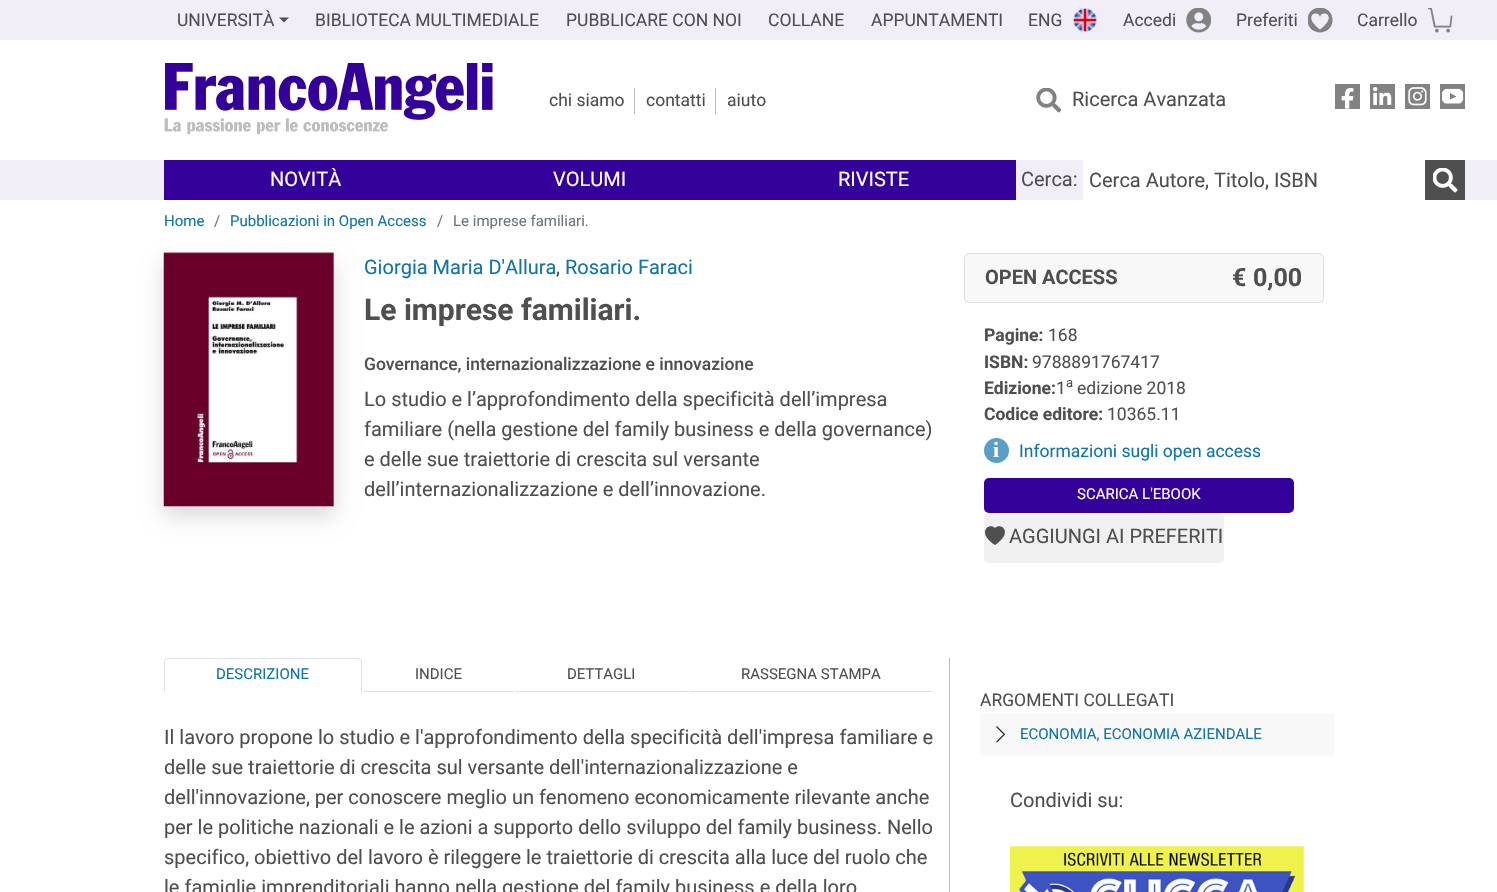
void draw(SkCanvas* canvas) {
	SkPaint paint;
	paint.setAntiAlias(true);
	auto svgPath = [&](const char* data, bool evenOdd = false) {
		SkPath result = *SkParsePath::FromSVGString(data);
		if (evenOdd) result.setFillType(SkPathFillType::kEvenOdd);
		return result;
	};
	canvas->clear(0xffffffff);
	paint.setColor(0xfff1eef7);
	canvas->drawRect(SkRect::MakeXYWH(0, 0, 1497, 40), paint);
	canvas->drawRect(SkRect::MakeXYWH(0, 160, 1497, 40), paint);
	SkFont f1(fontMgr->matchFamilyStyle("Roboto", SkFontStyle::Normal()), 17.5);
	f1.setSubpixel(true);
	paint.setColor(0xff4f4f4f);
	canvas->drawString("UNIVERSITÀ", 177, 26, f1, paint);
	canvas->drawPath(svgPath("M279 17.5H289L284 22.5Z"), paint);
	canvas->drawString("BIBLIOTECA MULTIMEDIALE", 315, 26, f1, paint);
	canvas->drawString("PUBBLICARE CON NOI", 566, 26, f1, paint);
	canvas->drawString("COLLANE", 768, 26, f1, paint);
	canvas->drawString("APPUNTAMENTI", 871, 26, f1, paint);
	canvas->drawString("ENG", 1028, 26, f1, paint);
	canvas->drawImageRect(SkImages::DeferredFromEncodedData(SkData::MakeFromFileName("img1.png")), SkRect::MakeXYWH(1073, 8, 24, 24), SkSamplingOptions());
	canvas->drawString("Accedi", 1123, 26, f1, paint);
	canvas->drawImageRect(SkImages::DeferredFromEncodedData(SkData::MakeFromFileName("img2.png")), SkRect::MakeXYWH(1186, 8, 25, 25), SkSamplingOptions());
	canvas->drawString("Preferiti", 1236, 26, f1, paint);
	canvas->save();
	canvas->clipRect(SkRect::MakeXYWH(1308, 8, 25, 25));
	paint.setColor(0xff828282);
	canvas->drawPath(svgPath("M1320 29.5C1301 15 1318.5 9 1320 17C1321.5 9 1339 15 1320 29.5ZM1332.5 20C1332.5 3.5 1307.5 3.5 1307.5 20C1307.5 36.5 1332.5 36.5 1332.5 20Z"), paint);
	canvas->restore();
	paint.setColor(0xff4f4f4f);
	canvas->drawString("Carrello", 1357, 26, f1, paint);
	canvas->drawImageRect(SkImages::DeferredFromEncodedData(SkData::MakeFromFileName("img3.png")), SkRect::MakeXYWH(1428, 8, 25, 25), SkSamplingOptions());
	canvas->drawImageRect(SkImages::DeferredFromEncodedData(SkData::MakeFromFileName("img4.png")), SkRect::MakeXYWH(164, 63, 329, 72), SkSamplingOptions());
	canvas->drawString("chi siamo", 549, 106, f1, paint);
	paint.setColor(0xffbdbdbd);
	canvas->drawRect(SkRect::MakeXYWH(634, 88, 1, 26), paint);
	paint.setColor(0xff4f4f4f);
	canvas->drawString("contatti", 646, 106, f1, paint);
	paint.setColor(0xffbdbdbd);
	canvas->drawRect(SkRect::MakeXYWH(715, 88, 1, 26), paint);
	paint.setColor(0xff4f4f4f);
	canvas->drawString("aiuto", 727, 106, f1, paint);
	canvas->drawImageRect(SkImages::DeferredFromEncodedData(SkData::MakeFromFileName("img5.png")), SkRect::MakeXYWH(1036, 88, 25, 25), SkSamplingOptions());
	SkFont f2(fontMgr->matchFamilyStyle("Roboto", SkFontStyle::Normal()), 20);
	f2.setSubpixel(true);
	canvas->drawString("Ricerca Avanzata", 1072, 106, f2, paint);
	paint.setColor(0xff828282);
	canvas->drawRect(SkRect::MakeXYWH(1335, 84, 25, 25), paint);
	canvas->drawImageRect(SkImages::DeferredFromEncodedData(SkData::MakeFromFileName("img6.png")), SkRect::MakeXYWH(1341, 88, 13, 21), SkSamplingOptions());
	canvas->drawRect(SkRect::MakeXYWH(1370, 84, 25, 25), paint);
	canvas->drawImageRect(SkImages::DeferredFromEncodedData(SkData::MakeFromFileName("img7.png")), SkRect::MakeXYWH(1373, 86, 19, 19), SkSamplingOptions());
	canvas->drawRect(SkRect::MakeXYWH(1405, 84, 25, 25), paint);
	canvas->drawImageRect(SkImages::DeferredFromEncodedData(SkData::MakeFromFileName("img8.png")), SkRect::MakeXYWH(1408, 87, 19, 19), SkSamplingOptions());
	canvas->drawRect(SkRect::MakeXYWH(1440, 84, 25, 25), paint);
	canvas->drawImageRect(SkImages::DeferredFromEncodedData(SkData::MakeFromFileName("img9.png")), SkRect::MakeXYWH(1441, 88, 23, 16), SkSamplingOptions());
	paint.setColor(0xff330099);
	canvas->drawRect(SkRect::MakeXYWH(164, 160, 852, 40), paint);
	paint.setColor(0xffffffff);
	canvas->drawString("NOVITÀ", 270, 186, f2, paint);
	canvas->drawString("VOLUMI", 553, 186, f2, paint);
	canvas->drawString("RIVISTE", 838, 186, f2, paint);
	paint.setColor(0xff4f4f4f);
	canvas->drawString("Cerca:", 1021, 186, f2, paint);
	paint.setColor(0xffffffff);
	canvas->drawRect(SkRect::MakeXYWH(1083, 160, 342, 40), paint);
	paint.setColor(0xff4f4f4f);
	canvas->drawString("Cerca Autore, Titolo, ISBN", 1089, 187, f2, paint);
	canvas->drawRect(SkRect::MakeXYWH(1425, 160, 40, 40), paint);
	canvas->drawImageRect(SkImages::DeferredFromEncodedData(SkData::MakeFromFileName("img10.png")), SkRect::MakeXYWH(1433, 168, 25, 25), SkSamplingOptions());
	SkFont f3(fontMgr->matchFamilyStyle("Roboto", SkFontStyle::Normal()), 15);
	f3.setSubpixel(true);
	paint.setColor(0xff1074ad);
	canvas->drawString("Home", 164, 226, f3, paint);
	paint.setColor(0xff6c757d);
	canvas->drawString("/", 214, 226, f3, paint);
	paint.setColor(0xff1074ad);
	canvas->drawString("Pubblicazioni in Open Access", 230, 226, f3, paint);
	paint.setColor(0xff6c757d);
	canvas->drawString("/", 437, 226, f3, paint);
	canvas->drawString("Le imprese familiari.", 453, 226, f3, paint);
	paint.setColor(0x26000000);
	paint.setMaskFilter(SkMaskFilter::MakeBlur(kNormal_SkBlurStyle, 10));
	canvas->drawRect(SkRect::MakeXYWH(164, 263, 170, 253), paint);
	paint.setMaskFilter(nullptr);
	canvas->drawImageRect(SkImages::DeferredFromEncodedData(SkData::MakeFromFileName("img11.png")), SkRect::MakeXYWH(163, 252, 171, 255), SkSamplingOptions());
	paint.setColor(0xff1074ad);
	canvas->drawString("Giorgia Maria D'Allura", 364, 274, f2, paint);
	paint.setColor(0xff4f4f4f);
	canvas->drawString(",", 556, 274, f2, paint);
	paint.setColor(0xff1074ad);
	canvas->drawString("Rosario Faraci", 565, 274, f2, paint);
	SkFont f4(fontMgr->matchFamilyStyle("Roboto", SkFontStyle::Bold()), 30);
	f4.setSubpixel(true);
	paint.setColor(0xff4f4f4f);
	canvas->drawString("Le imprese familiari.", 364, 320, f4, paint);
	SkFont f5(fontMgr->matchFamilyStyle("Roboto", SkFontStyle(500, SkFontStyle::kNormal_Width, SkFontStyle::kUpright_Slant)), 17.5);
	f5.setSubpixel(true);
	canvas->drawString("Governance, internazionalizzazione e innovazione", 364, 370, f5, paint);
	canvas->drawString("Lo studio e l’approfondimento della specificità dell’impresa", 364, 406, f2, paint);
	canvas->drawString("familiare (nella gestione del family business e della governance)", 364, 436, f2, paint);
	canvas->drawString("e delle sue traiettorie di crescita sul versante", 364, 466, f2, paint);
	canvas->drawString("dell’internazionalizzazione e dell’innovazione.", 364, 496, f2, paint);
	paint.setColor(0xfff8f8f8);
	canvas->drawRoundRect(SkRect::MakeXYWH(964.5, 253.5, 359, 49), 4.5, 4.5, paint);
	paint.setStroke(true);
	paint.setStrokeWidth(1);
	paint.setColor(0xffe0e0e0);
	canvas->drawRoundRect(SkRect::MakeXYWH(964.5, 253.5, 359, 49), 4.5, 4.5, paint);
	SkFont f6(fontMgr->matchFamilyStyle("Roboto", SkFontStyle::Bold()), 20);
	f6.setSubpixel(true);
	paint.setStroke(false);
	paint.setColor(0xff4f4f4f);
	canvas->drawString("OPEN ACCESS", 985, 284, f6, paint);
	SkFont f7(fontMgr->matchFamilyStyle("Roboto", SkFontStyle::Bold()), 25);
	f7.setSubpixel(true);
	canvas->drawString("€", 1232, 286, f7, paint);
	canvas->drawString("0,00", 1253, 286, f7, paint);
	SkFont f8(fontMgr->matchFamilyStyle("Roboto", SkFontStyle::Bold()), 17.5);
	f8.setSubpixel(true);
	canvas->drawString("Pagine:", 984, 341, f8, paint);
	canvas->drawString("168", 1048, 341, f1, paint);
	canvas->drawString("ISBN:", 984, 368, f8, paint);
	canvas->drawString("9788891767417", 1032, 368, f1, paint);
	canvas->drawString("Edizione:", 984, 394, f8, paint);
	canvas->drawString("1", 1056, 394, f1, paint);
	SkFont f9(fontMgr->matchFamilyStyle("Roboto", SkFontStyle::Normal()), 13);
	f9.setSubpixel(true);
	canvas->drawString("a", 1066, 387, f9, paint);
	canvas->drawString("edizione 2018", 1077, 394, f1, paint);
	canvas->drawString("Codice editore:", 984, 420, f8, paint);
	canvas->drawString("10365.11", 1107, 420, f1, paint);
	paint.setColor(0xff589ec6);
	canvas->drawCircle(996.5, 450.5, 12.5, paint);
	SkFont f10(fontMgr->matchFamilyStyle("Liberation Serif", SkFontStyle::Bold()), 22);
	f10.setSubpixel(true);
	paint.setColor(0xffffffff);
	canvas->drawString("i", 993, 457, f10, paint);
	paint.setColor(0xff1074ad);
	canvas->drawString("Informazioni sugli open access", 1019, 457, f1, paint);
	paint.setColor(0xff330099);
	canvas->drawRoundRect(SkRect::MakeXYWH(984, 478, 310, 35), 5, 5, paint);
	paint.setColor(0xffffffff);
	canvas->drawString("SCARICA L'EBOOK", 1077, 499, f3, paint);
	paint.setColor(0xfff0f0f0);
	canvas->drawRoundRect(SkRect::MakeXYWH(984, 513, 240, 50), 5, 5, paint);
	paint.setColor(0xff4f4f4f);
	canvas->drawPath(svgPath("M995 528C1001 522 1014 532.5 995 545C976 532.5 989 522 995 528Z"), paint);
	canvas->drawString("AGGIUNGI AI PREFERITI", 1009, 543, f2, paint);
	paint.setColor(0xffdee2e6);
	canvas->drawPath(svgPath("M169 658L165 659L166 660L169 659H358L360 660L361 659L358 658Z"), paint);
	canvas->drawPath(svgPath("M362 692V662C362 661 361.5 660 361 659L360 660C361 660 361 661 361 662V691Z"), paint);
	paint.setColor(0xffffffff);
	canvas->drawPath(svgPath("M362 692L361 691H165L164 692Z"), paint);
	paint.setColor(0xffdee2e6);
	canvas->drawPath(svgPath("M165.5 659C164.5 660 164 661 164 662V692L165 691V661.5L166 660Z"), paint);
	paint.setColor(0xff1074ad);
	canvas->drawString("DESCRIZIONE", 216, 679, f3, paint);
	paint.setColor(0xffe0e0e0);
	canvas->drawPath(svgPath("M514 692H363L364 691H514Z"), paint);
	paint.setColor(0xff4f4f4f);
	canvas->drawString("INDICE", 415, 679, f3, paint);
	paint.setColor(0xffe0e0e0);
	canvas->drawPath(svgPath("M688 692H516V691H687Z"), paint);
	paint.setColor(0xff4f4f4f);
	canvas->drawString("DETTAGLI", 567, 679, f3, paint);
	paint.setColor(0xffe0e0e0);
	canvas->drawPath(svgPath("M933 692H689L690 691H932Z"), paint);
	paint.setColor(0xff4f4f4f);
	canvas->drawString("RASSEGNA STAMPA", 741, 679, f3, paint);
	canvas->drawString("Il lavoro propone lo studio e l'approfondimento della specificità dell'impresa familiare e", 164, 744, f2, paint);
	canvas->drawString("delle sue traiettorie di crescita sul versante dell'internazionalizzazione e", 164, 774, f2, paint);
	canvas->drawString("dell'innovazione, per conoscere meglio un fenomeno economicamente rilevante anche", 164, 804, f2, paint);
	canvas->drawString("per le politiche nazionali e le azioni a supporto dello sviluppo del family business. Nello", 164, 834, f2, paint);
	canvas->drawString("specifico, obiettivo del lavoro è rileggere le traiettorie di crescita alla luce del ruolo che", 164, 864, f2, paint);
	canvas->drawString("le famiglie imprenditoriali hanno nella gestione del family business e della loro", 164, 894, f2, paint);
	paint.setColor(0xffbdbdbd);
	canvas->drawRect(SkRect::MakeXYWH(949, 658, 1, 234), paint);
	paint.setColor(0xff4f4f4f);
	canvas->drawString("ARGOMENTI COLLEGATI", 980, 706, f1, paint);
	paint.setColor(0xfff8f8f8);
	canvas->drawPath(svgPath("M980 714H1334V752C1334 754 1332 756 1330 756H984C982 756 980 754 980 752Z"), paint);
	canvas->drawImageRect(SkImages::DeferredFromEncodedData(SkData::MakeFromFileName("img12.png")), SkRect::MakeXYWH(996, 726, 9, 17), SkSamplingOptions());
	paint.setColor(0xff1074ad);
	canvas->drawString("ECONOMIA, ECONOMIA AZIENDALE", 1020, 739, f3, paint);
	paint.setColor(0xff4f4f4f);
	canvas->drawString("Condividi su:", 1010, 807, f2, paint);
	canvas->drawImageRect(SkImages::DeferredFromEncodedData(SkData::MakeFromFileName("img13.png")), SkRect::MakeXYWH(1010, 846, 294, 46), SkSamplingOptions());
}
